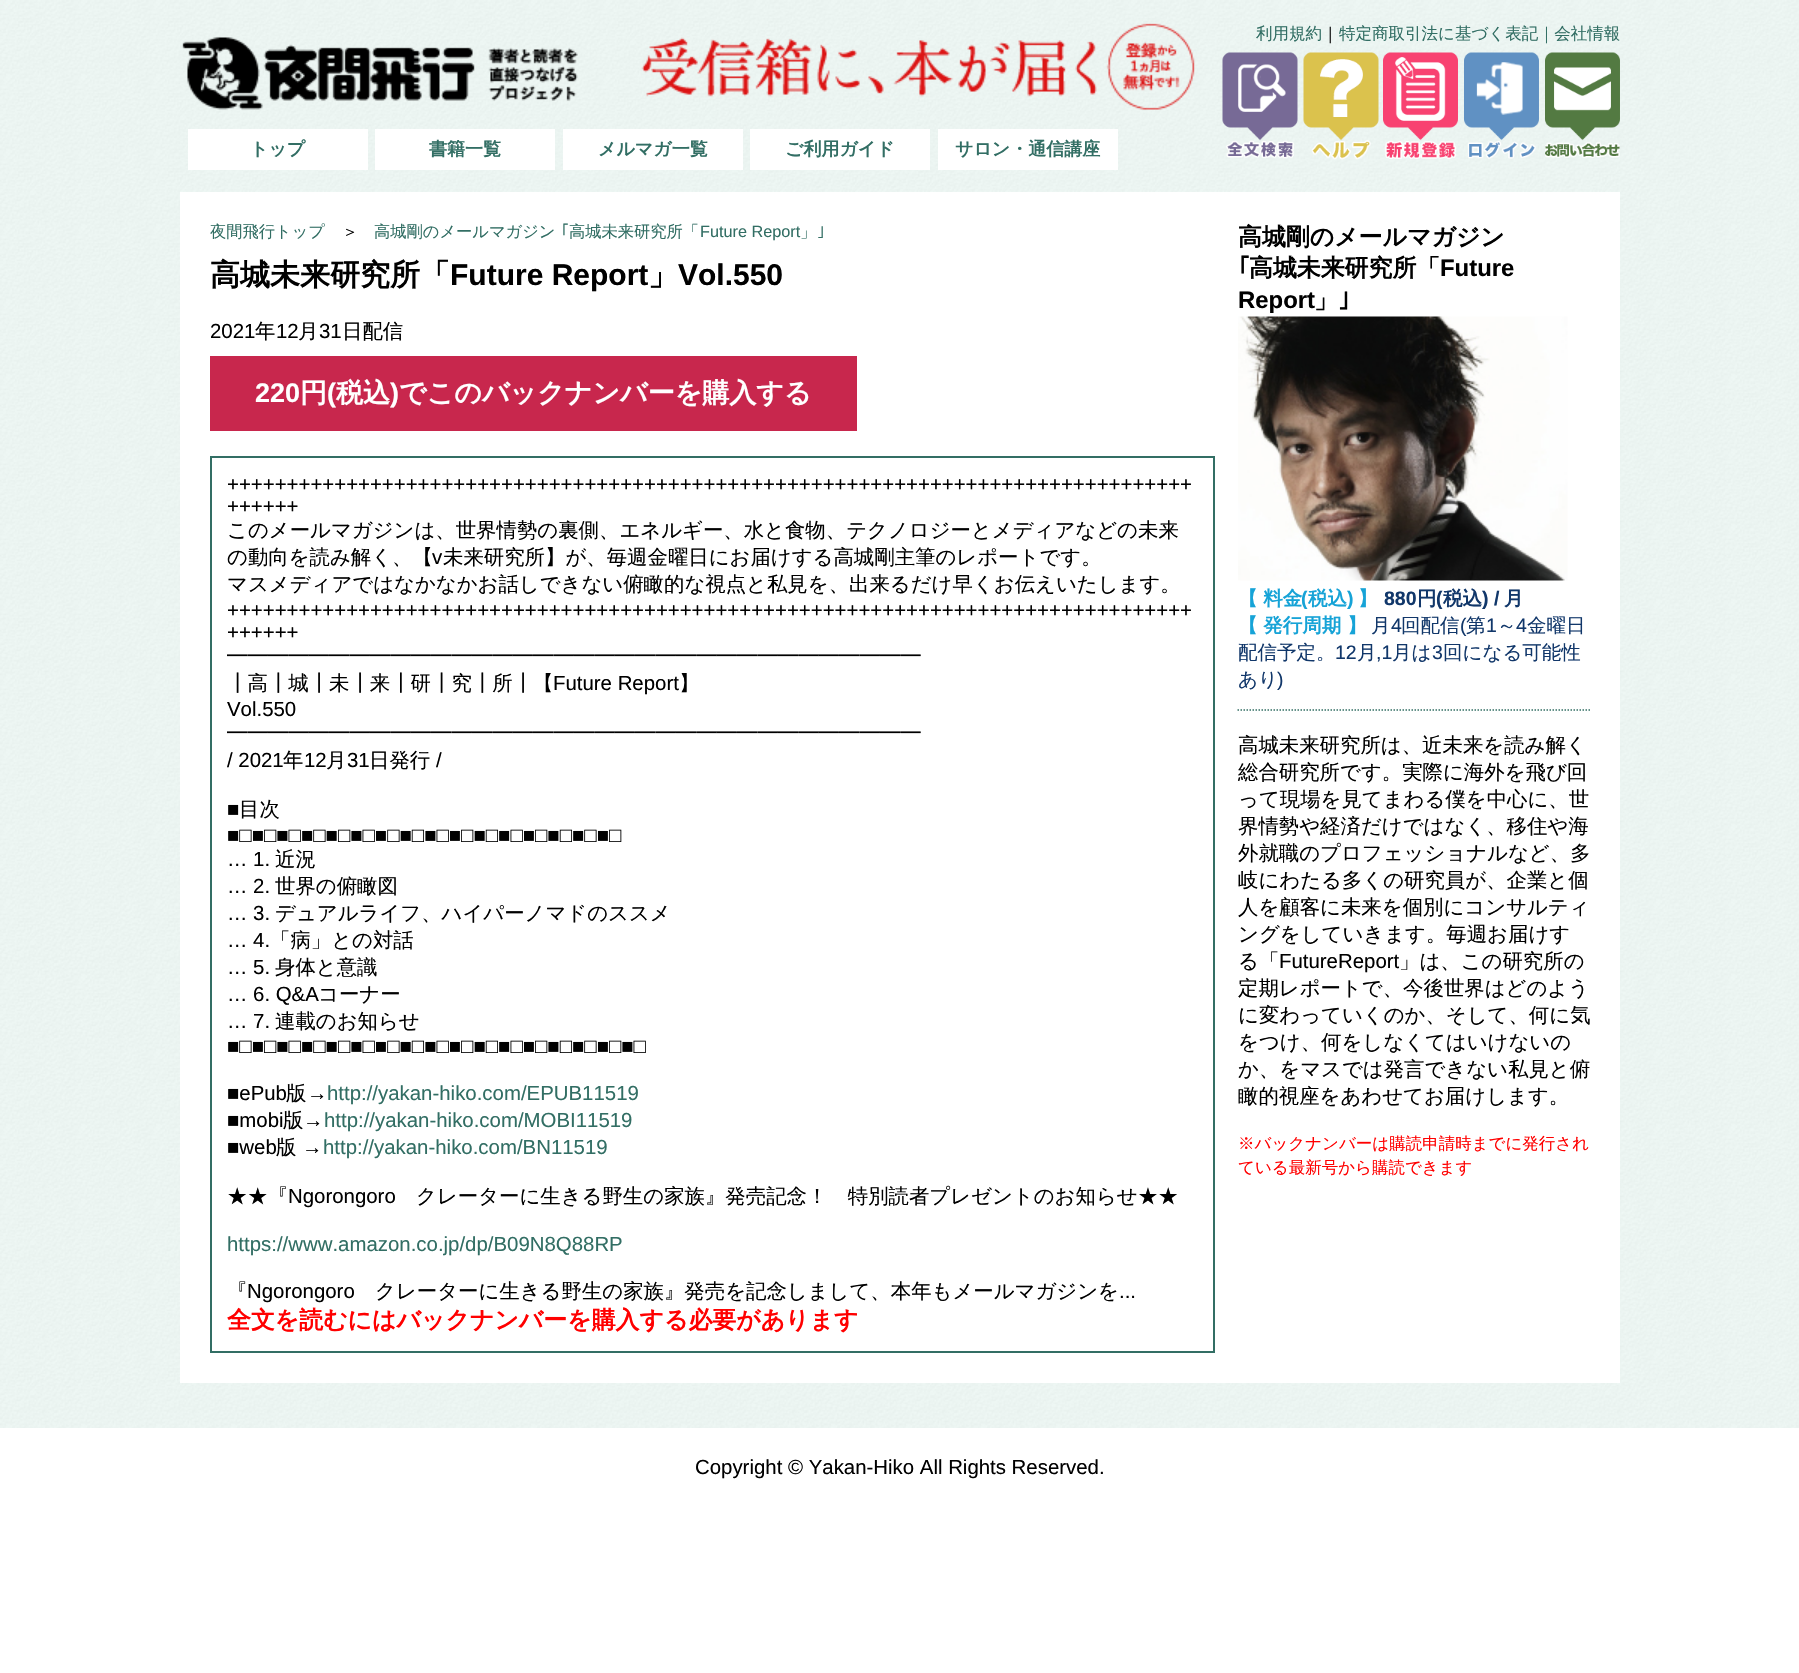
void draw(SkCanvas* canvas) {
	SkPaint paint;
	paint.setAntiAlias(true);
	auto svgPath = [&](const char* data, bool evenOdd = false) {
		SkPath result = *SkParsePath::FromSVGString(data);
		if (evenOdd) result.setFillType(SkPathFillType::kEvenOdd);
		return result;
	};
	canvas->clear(0xffffffff);
	canvas->drawImageRect(SkImages::DeferredFromEncodedData(SkData::MakeFromFileName("img1.png")), SkRect::MakeXYWH(0, 0, 1799, 1428), SkSamplingOptions());
	canvas->drawImageRect(SkImages::DeferredFromEncodedData(SkData::MakeFromFileName("img2.png")), SkRect::MakeXYWH(182, 37, 396, 73), SkSamplingOptions());
	canvas->drawImageRect(SkImages::DeferredFromEncodedData(SkData::MakeFromFileName("img3.png")), SkRect::MakeXYWH(641, 23, 554, 87), SkSamplingOptions());
	SkFont f1(fontMgr->matchFamilyStyle("WenQuanYi Zen Hei", SkFontStyle(500, SkFontStyle::kNormal_Width, SkFontStyle::kUpright_Slant)), 16.5);
	f1.setSubpixel(true);
	paint.setColor(0xff326e64);
	canvas->drawString("利用規約", 1256, 39, f1, paint);
	paint.setColor(0xff000000);
	canvas->drawString("｜", 1322, 39, f1, paint);
	paint.setColor(0xff326e64);
	canvas->drawString("特定商取引法に基づく表記｜会社情報", 1339, 39, f1, paint);
	paint.setColor(0xffffffff);
	canvas->drawRect(SkRect::MakeXYWH(188, 129, 180, 41), paint);
	SkFont f2(fontMgr->matchFamilyStyle("WenQuanYi Zen Hei", SkFontStyle::Bold()), 18);
	f2.setSubpixel(true);
	paint.setColor(0xff326e64);
	canvas->drawString("トップ", 250, 155, f2, paint);
	paint.setColor(0xffffffff);
	canvas->drawRect(SkRect::MakeXYWH(375, 129, 180, 41), paint);
	paint.setColor(0xff326e64);
	canvas->drawString("書籍一覧", 429, 155, f2, paint);
	paint.setColor(0xffffffff);
	canvas->drawRect(SkRect::MakeXYWH(563, 129, 180, 41), paint);
	paint.setColor(0xff326e64);
	canvas->drawString("メルマガ一覧", 598, 155, f2, paint);
	paint.setColor(0xffffffff);
	canvas->drawRect(SkRect::MakeXYWH(750, 129, 180, 41), paint);
	paint.setColor(0xff326e64);
	canvas->drawString("ご利用ガイド", 785, 155, f2, paint);
	paint.setColor(0xffffffff);
	canvas->drawRect(SkRect::MakeXYWH(938, 129, 180, 41), paint);
	paint.setColor(0xff326e64);
	canvas->drawString("サロン・通信講座", 955, 155, f2, paint);
	canvas->drawImageRect(SkImages::DeferredFromEncodedData(SkData::MakeFromFileName("img4.png")), SkRect::MakeXYWH(1222, 52, 76, 107), SkSamplingOptions());
	canvas->drawImageRect(SkImages::DeferredFromEncodedData(SkData::MakeFromFileName("img5.png")), SkRect::MakeXYWH(1303, 52, 76, 108), SkSamplingOptions());
	canvas->drawImageRect(SkImages::DeferredFromEncodedData(SkData::MakeFromFileName("img6.png")), SkRect::MakeXYWH(1383, 52, 75, 107), SkSamplingOptions());
	canvas->drawImageRect(SkImages::DeferredFromEncodedData(SkData::MakeFromFileName("img7.png")), SkRect::MakeXYWH(1464, 52, 75, 107), SkSamplingOptions());
	canvas->drawImageRect(SkImages::DeferredFromEncodedData(SkData::MakeFromFileName("img8.png")), SkRect::MakeXYWH(1545, 52, 75, 106), SkSamplingOptions());
	paint.setColor(0xffffffff);
	canvas->drawRect(SkRect::MakeXYWH(180, 192, 1440, 1191), paint);
	SkFont f3(fontMgr->matchFamilyStyle("WenQuanYi Zen Hei", SkFontStyle(500, SkFontStyle::kNormal_Width, SkFontStyle::kUpright_Slant)), 16.25);
	f3.setSubpixel(true);
	paint.setColor(0xff326e64);
	canvas->drawString("夜間飛行トップ", 210, 237, f3, paint);
	paint.setColor(0xff000000);
	canvas->drawString("＞", 342, 237, f3, paint);
	paint.setColor(0xff326e64);
	canvas->drawString("高城剛のメールマガジン", 374, 237, f3, paint);
	SkFont f4(fontMgr->matchFamilyStyle("IPAPGothic", SkFontStyle::Normal()), 16.25);
	f4.setSubpixel(true);
	canvas->drawString("｢", 561, 237, f4, paint);
	canvas->drawString("高城未来研究所「", 569, 237, f3, paint);
	SkFont f5(fontMgr->matchFamilyStyle("Liberation Sans", SkFontStyle::Normal()), 16.25);
	f5.setSubpixel(true);
	canvas->drawString("Future Report", 700, 237, f5, paint);
	canvas->drawString("」", 800, 237, f3, paint);
	canvas->drawString("｣", 817, 237, f4, paint);
	SkFont f6(fontMgr->matchFamilyStyle("WenQuanYi Zen Hei", SkFontStyle::Bold()), 30);
	f6.setSubpixel(true);
	paint.setColor(0xff000000);
	canvas->drawString("高城未来研究所「", 210, 285, f6, paint);
	SkFont f7(fontMgr->matchFamilyStyle("Liberation Sans", SkFontStyle::Bold()), 30);
	f7.setSubpixel(true);
	canvas->drawString("Future Report", 450, 285, f7, paint);
	canvas->drawString("」", 648, 285, f6, paint);
	canvas->drawString("Vol.550", 678, 285, f7, paint);
	SkFont f8(fontMgr->matchFamilyStyle("Liberation Sans", SkFontStyle::Normal()), 20.4);
	f8.setSubpixel(true);
	canvas->drawString("2021", 210, 338, f8, paint);
	SkFont f9(fontMgr->matchFamilyStyle("WenQuanYi Zen Hei", SkFontStyle(500, SkFontStyle::kNormal_Width, SkFontStyle::kUpright_Slant)), 20.4);
	f9.setSubpixel(true);
	canvas->drawString("年", 255, 338, f9, paint);
	canvas->drawString("12", 276, 338, f8, paint);
	canvas->drawString("月", 298, 338, f9, paint);
	canvas->drawString("31", 319, 338, f8, paint);
	canvas->drawString("日配信", 342, 338, f9, paint);
	paint.setColor(0xffc8274d);
	canvas->drawRect(SkRect::MakeXYWH(210, 356, 647, 75), paint);
	SkFont f10(fontMgr->matchFamilyStyle("Liberation Sans", SkFontStyle::Bold()), 27);
	f10.setSubpixel(true);
	paint.setColor(0xffffffff);
	canvas->drawString("220", 255, 402, f10, paint);
	SkFont f11(fontMgr->matchFamilyStyle("WenQuanYi Zen Hei", SkFontStyle::Bold()), 27);
	f11.setSubpixel(true);
	canvas->drawString("円", 300, 402, f11, paint);
	canvas->drawString("(", 327, 402, f10, paint);
	canvas->drawString("税込", 336, 402, f11, paint);
	canvas->drawString(")", 390, 402, f10, paint);
	canvas->drawString("でこのバックナンバーを購入する", 399, 402, f11, paint);
	paint.setStroke(true);
	paint.setStrokeWidth(2);
	paint.setColor(0xff326e64);
	canvas->drawRect(SkRect::MakeXYWH(211, 457, 1003, 895), paint);
	paint.setStroke(false);
	paint.setColor(0xff000000);
	canvas->drawString("+++++++++++++++++++++++++++++++++++++++++++++++++++++++++++++++++++++++++++++++++", 227, 491, f8, paint);
	canvas->drawString("++++++", 227, 513, f8, paint);
	canvas->drawString("このメールマガジンは、世界情勢の裏側、エネルギー、水と食物、テクノロジーとメディアなどの未来", 227, 537, f9, paint);
	canvas->drawString("の動向を読み解く、【", 227, 564, f9, paint);
	canvas->drawString("v", 432, 564, f8, paint);
	canvas->drawString("未来研究所】が、毎週金曜日にお届けする高城剛主筆のレポートです。", 443, 564, f9, paint);
	canvas->drawString("マスメディアではなかなかお話しできない俯瞰的な視点と私見を、出来るだけ早くお伝えいたします。", 227, 591, f9, paint);
	canvas->drawString("+++++++++++++++++++++++++++++++++++++++++++++++++++++++++++++++++++++++++++++++++", 227, 617, f8, paint);
	canvas->drawString("++++++", 227, 639, f8, paint);
	canvas->drawString("━━━━━━━━━━━━━━━━━━━━━━━━━━━━━━━━━━", 227, 663, f9, paint);
	canvas->drawString("┃高┃城┃未┃来┃研┃究┃所┃【", 227, 690, f9, paint);
	canvas->drawString("Future Report", 553, 690, f8, paint);
	canvas->drawString("】", 679, 690, f9, paint);
	canvas->drawString("Vol.550", 227, 716, f8, paint);
	canvas->drawString("━━━━━━━━━━━━━━━━━━━━━━━━━━━━━━━━━━", 227, 740, f9, paint);
	canvas->drawString("/ 2021", 227, 767, f8, paint);
	canvas->drawString("年", 283, 767, f9, paint);
	canvas->drawString("12", 304, 767, f8, paint);
	canvas->drawString("月", 326, 767, f9, paint);
	canvas->drawString("31", 347, 767, f8, paint);
	canvas->drawString("日発行", 369, 767, f9, paint);
	canvas->drawString("/", 436, 767, f8, paint);
	canvas->drawString("■", 227, 816, f8, paint);
	canvas->drawString("目次", 239, 816, f9, paint);
	canvas->drawString("■□■□■□■□■□■□■□■□■□■□■□■□■□■□■□■□", 227, 842, f8, paint);
	canvas->drawString("… 1.", 227, 866, f8, paint);
	canvas->drawString("近況", 275, 866, f9, paint);
	canvas->drawString("… 2.", 227, 893, f8, paint);
	canvas->drawString("世界の俯瞰図", 275, 893, f9, paint);
	canvas->drawString("… 3.", 227, 920, f8, paint);
	canvas->drawString("デュアルライフ、ハイパーノマドのススメ", 275, 920, f9, paint);
	canvas->drawString("… 4.", 227, 947, f8, paint);
	canvas->drawString("「病」との対話", 270, 947, f9, paint);
	canvas->drawString("… 5.", 227, 974, f8, paint);
	canvas->drawString("身体と意識", 275, 974, f9, paint);
	canvas->drawString("… 6. Q&A", 227, 1001, f8, paint);
	canvas->drawString("コーナー", 318, 1001, f9, paint);
	canvas->drawString("… 7.", 227, 1028, f8, paint);
	canvas->drawString("連載のお知らせ", 275, 1028, f9, paint);
	canvas->drawString("■□■□■□■□■□■□■□■□■□■□■□■□■□■□■□■□■□", 227, 1053, f8, paint);
	canvas->drawString("■ePub", 227, 1100, f8, paint);
	canvas->drawString("版", 286, 1100, f9, paint);
	canvas->drawString("→", 307, 1100, f8, paint);
	paint.setColor(0xff326e64);
	canvas->drawString("http://yakan-hiko.com/EPUB11519", 327, 1100, f8, paint);
	paint.setColor(0xff000000);
	canvas->drawString("■mobi", 227, 1127, f8, paint);
	canvas->drawString("版", 283, 1127, f9, paint);
	canvas->drawString("→", 303, 1127, f8, paint);
	paint.setColor(0xff326e64);
	canvas->drawString("http://yakan-hiko.com/MOBI11519", 324, 1127, f8, paint);
	paint.setColor(0xff000000);
	canvas->drawString("■web", 227, 1154, f8, paint);
	canvas->drawString("版", 276, 1154, f9, paint);
	canvas->drawString("→", 302, 1154, f8, paint);
	paint.setColor(0xff326e64);
	canvas->drawString("http://yakan-hiko.com/BN11519", 323, 1154, f8, paint);
	paint.setColor(0xff000000);
	canvas->drawString("★★『", 227, 1203, f9, paint);
	canvas->drawString("Ngorongoro", 288, 1203, f8, paint);
	canvas->drawString("クレーターに生きる野生の家族』発売記念！　特別読者プレゼントのお知らせ★★", 416, 1203, f9, paint);
	paint.setColor(0xff326e64);
	canvas->drawString("https://www.amazon.co.jp/dp/B09N8Q88RP", 227, 1251, f8, paint);
	paint.setColor(0xff000000);
	canvas->drawString("『", 227, 1298, f9, paint);
	canvas->drawString("Ngorongoro", 247, 1298, f8, paint);
	canvas->drawString("クレーターに生きる野生の家族』発売を記念しまして、本年もメールマガジンを", 375, 1298, f9, paint);
	canvas->drawString("...", 1119, 1298, f8, paint);
	SkFont f12(fontMgr->matchFamilyStyle("WenQuanYi Zen Hei", SkFontStyle::Bold()), 23.9);
	f12.setSubpixel(true);
	paint.setColor(0xffff0000);
	canvas->drawString("全文を読むにはバックナンバーを購入する必要があります", 227, 1328, f12, paint);
	paint.setColor(0xff000000);
	canvas->drawString("高城剛のメールマガジン", 1238, 245, f12, paint);
	SkFont f13(fontMgr->matchFamilyStyle("IPAPGothic", SkFontStyle::Bold()), 23.9);
	f13.setSubpixel(true);
	canvas->drawString("｢", 1238, 276, f13, paint);
	canvas->drawString("高城未来研究所「", 1249, 276, f12, paint);
	SkFont f14(fontMgr->matchFamilyStyle("Liberation Sans", SkFontStyle::Bold()), 23.9);
	f14.setSubpixel(true);
	canvas->drawString("Future", 1440, 276, f14, paint);
	canvas->drawString("Report", 1238, 308, f14, paint);
	canvas->drawString("」", 1314, 308, f12, paint);
	canvas->drawString("｣", 1338, 308, f13, paint);
	canvas->drawImageRect(SkImages::DeferredFromEncodedData(SkData::MakeFromFileName("img9.png")), SkRect::MakeXYWH(1238, 316, 330, 265), SkSamplingOptions());
	SkFont f15(fontMgr->matchFamilyStyle("WenQuanYi Zen Hei", SkFontStyle::Bold()), 19.5);
	f15.setSubpixel(true);
	paint.setColor(0xff16a3d7);
	canvas->drawString("【 料金", 1238, 605, f15, paint);
	SkFont f16(fontMgr->matchFamilyStyle("Liberation Sans", SkFontStyle::Bold()), 19.5);
	f16.setSubpixel(true);
	canvas->drawString("(", 1301, 605, f16, paint);
	canvas->drawString("税込", 1308, 605, f15, paint);
	canvas->drawString(")", 1347, 605, f16, paint);
	canvas->drawString("】", 1358, 605, f15, paint);
	paint.setColor(0xff11376a);
	canvas->drawString("880", 1384, 605, f16, paint);
	canvas->drawString("円", 1417, 605, f15, paint);
	canvas->drawString("(", 1436, 605, f16, paint);
	canvas->drawString("税込", 1443, 605, f15, paint);
	canvas->drawString(") /", 1482, 605, f16, paint);
	canvas->drawString("月", 1504, 605, f15, paint);
	paint.setColor(0xff16a3d7);
	canvas->drawString("【 発行周期 】", 1238, 632, f15, paint);
	SkFont f17(fontMgr->matchFamilyStyle("WenQuanYi Zen Hei", SkFontStyle(500, SkFontStyle::kNormal_Width, SkFontStyle::kUpright_Slant)), 19.5);
	f17.setSubpixel(true);
	paint.setColor(0xff11376a);
	canvas->drawString("月", 1371, 632, f17, paint);
	SkFont f18(fontMgr->matchFamilyStyle("Liberation Sans", SkFontStyle::Normal()), 19.5);
	f18.setSubpixel(true);
	canvas->drawString("4", 1391, 632, f18, paint);
	canvas->drawString("回配信", 1401, 632, f17, paint);
	canvas->drawString("(", 1460, 632, f18, paint);
	canvas->drawString("第", 1466, 632, f17, paint);
	canvas->drawString("1", 1486, 632, f18, paint);
	canvas->drawString("～", 1497, 632, f17, paint);
	canvas->drawString("4", 1516, 632, f18, paint);
	canvas->drawString("金曜日", 1527, 632, f17, paint);
	canvas->drawString("配信予定。", 1238, 659, f17, paint);
	canvas->drawString("12", 1335, 659, f18, paint);
	canvas->drawString("月", 1357, 659, f17, paint);
	canvas->drawString(",1", 1376, 659, f18, paint);
	canvas->drawString("月は", 1392, 659, f17, paint);
	canvas->drawString("3", 1432, 659, f18, paint);
	canvas->drawString("回になる可能性", 1443, 659, f17, paint);
	canvas->drawString("あり", 1238, 686, f17, paint);
	canvas->drawString(")", 1277, 686, f18, paint);
	paint.setStroke(true);
	paint.setStrokeWidth(1.5);
	paint.setColor(0xff326e64);
	paint.setPathEffect(SkDashPathEffect::Make({{1.5f, 1.5f}}, 0));
	canvas->drawPath(svgPath("M1237.5 710H1590"), paint);
	paint.setPathEffect(nullptr);
	paint.setStroke(false);
	paint.setColor(0xff000000);
	canvas->drawString("高城未来研究所は、近未来を読み解く", 1238, 752, f9, paint);
	canvas->drawString("総合研究所です。実際に海外を飛び回", 1238, 779, f9, paint);
	canvas->drawString("って現場を見てまわる僕を中心に、世", 1238, 806, f9, paint);
	canvas->drawString("界情勢や経済だけではなく、移住や海", 1238, 833, f9, paint);
	canvas->drawString("外就職のプロフェッショナルなど、多", 1238, 860, f9, paint);
	canvas->drawString("岐にわたる多くの研究員が、企業と個", 1238, 887, f9, paint);
	canvas->drawString("人を顧客に未来を個別にコンサルティ", 1238, 914, f9, paint);
	canvas->drawString("ングをしていきます。毎週お届けす", 1238, 941, f9, paint);
	canvas->drawString("る「", 1238, 968, f9, paint);
	canvas->drawString("FutureReport", 1279, 968, f8, paint);
	canvas->drawString("」は、この研究所の", 1399, 968, f9, paint);
	canvas->drawString("定期レポートで、今後世界はどのよう", 1238, 995, f9, paint);
	canvas->drawString("に変わっていくのか、そして、何に気", 1238, 1022, f9, paint);
	canvas->drawString("をつけ、何をしなくてはいけないの", 1238, 1049, f9, paint);
	canvas->drawString("か、をマスでは発言できない私見と俯", 1238, 1076, f9, paint);
	canvas->drawString("瞰的視座をあわせてお届けします。", 1238, 1103, f9, paint);
	paint.setColor(0xffff0000);
	canvas->drawString("※バックナンバーは購読申請時までに発行され", 1238, 1149, f1, paint);
	canvas->drawString("ている最新号から購読できます", 1238, 1173, f1, paint);
	paint.setColor(0xff000000);
	canvas->drawString("Copyright © Yakan-Hiko All Rights Reserved.", 695, 1474, f8, paint);
}
